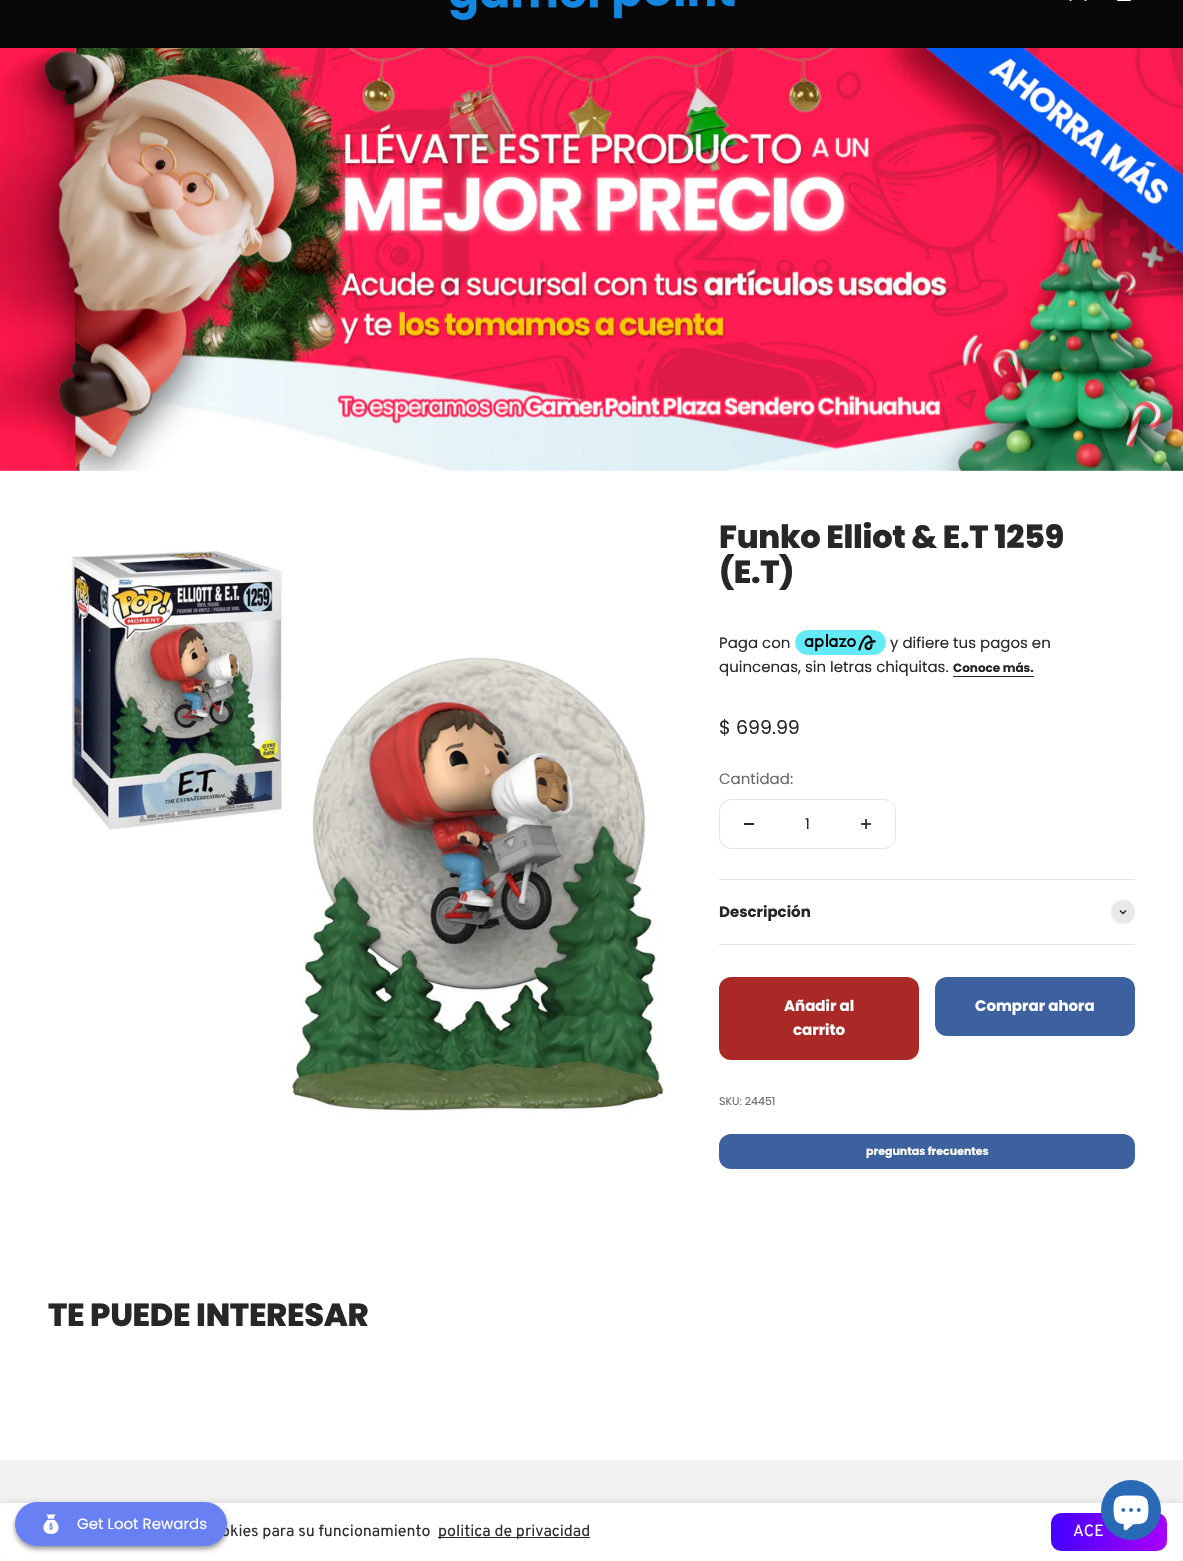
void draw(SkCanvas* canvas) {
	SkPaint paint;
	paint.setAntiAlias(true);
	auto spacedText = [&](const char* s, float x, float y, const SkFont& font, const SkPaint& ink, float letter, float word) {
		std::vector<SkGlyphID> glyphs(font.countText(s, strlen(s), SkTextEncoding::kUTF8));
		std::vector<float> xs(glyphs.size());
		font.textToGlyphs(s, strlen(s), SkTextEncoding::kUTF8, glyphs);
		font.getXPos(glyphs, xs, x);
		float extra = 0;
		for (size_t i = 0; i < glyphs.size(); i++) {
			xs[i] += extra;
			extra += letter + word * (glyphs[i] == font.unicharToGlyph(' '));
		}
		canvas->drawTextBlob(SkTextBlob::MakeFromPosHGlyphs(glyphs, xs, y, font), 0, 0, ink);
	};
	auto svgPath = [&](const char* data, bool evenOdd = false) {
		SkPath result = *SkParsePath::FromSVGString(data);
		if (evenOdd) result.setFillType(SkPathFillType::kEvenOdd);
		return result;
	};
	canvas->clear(0xffffffff);
	paint.setColor(0xff474747);
	canvas->drawRect(SkRect::MakeXYWH(861, 823, 10, 2), paint);
	paint.setColor(0xff080808);
	canvas->drawRect(SkRect::MakeXYWH(0, 0, 1183, 48), paint);
	canvas->drawImageRect(SkImages::DeferredFromEncodedData(SkData::MakeFromFileName("img1.png")), SkRect::MakeXYWH(450, 0, 285, 20), SkSamplingOptions());
	paint.setStroke(true);
	paint.setStrokeWidth(2);
	paint.setStrokeCap(SkPaint::kRound_Cap);
	paint.setColor(0xffffffff);
	canvas->drawPath(svgPath("M1070.5 0C1073.5-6.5 1082.5-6.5 1085.5 0"), paint);
	canvas->drawImageRect(SkImages::DeferredFromEncodedData(SkData::MakeFromFileName("img2.png")), SkRect::MakeXYWH(1116, 0, 16, 1), SkSamplingOptions());
	canvas->drawImageRect(SkImages::DeferredFromEncodedData(SkData::MakeFromFileName("img3.png")), SkRect::MakeXYWH(0, 48, 1183, 423), SkSamplingOptions());
	canvas->drawImageRect(SkImages::DeferredFromEncodedData(SkData::MakeFromFileName("img4.png")), SkRect::MakeXYWH(70, 550, 595, 566), SkSamplingOptions());
	SkFont f1(fontMgr->matchFamilyStyle("Poppins", SkFontStyle(800, SkFontStyle::kNormal_Width, SkFontStyle::kUpright_Slant)), 32);
	f1.setSubpixel(true);
	paint.setStroke(false);
	paint.setColor(0xff272727);
	spacedText("Funko Elliot & E.T 1259", 719, 548, f1, paint, -0.3, 0);
	spacedText("(E.T)", 719, 583, f1, paint, -0.3, 0);
	SkFont f2(fontMgr->matchFamilyStyle("Poppins", SkFontStyle::Normal()), 15);
	f2.setSubpixel(true);
	canvas->drawString("Paga con", 719, 648, f2, paint);
	canvas->drawImageRect(SkImages::DeferredFromEncodedData(SkData::MakeFromFileName("img5.png")), SkRect::MakeXYWH(795, 630, 91, 25), SkSamplingOptions());
	canvas->drawString("y difiere tus pagos en", 890, 648, f2, paint);
	canvas->drawString("quincenas, sin letras chiquitas.", 719, 672, f2, paint);
	SkFont f3(fontMgr->matchFamilyStyle("Poppins", SkFontStyle::Bold()), 12);
	f3.setSubpixel(true);
	canvas->drawString("Conoce más.", 953, 672, f3, paint);
	canvas->drawRect(SkRect::MakeXYWH(953, 676, 81, 1), paint);
	SkFont f4(fontMgr->matchFamilyStyle("Poppins", SkFontStyle::Normal()), 19);
	f4.setSubpixel(true);
	canvas->drawString("$ 699.99", 719, 734, f4, paint);
	paint.setColor(0xff686868);
	canvas->drawString("Cantidad:", 719, 784, f2, paint);
	paint.setStroke(true);
	paint.setStrokeWidth(1);
	paint.setStrokeCap(SkPaint::kButt_Cap);
	paint.setColor(0xffe5e5e5);
	canvas->drawRoundRect(SkRect::MakeXYWH(719.5, 799.5, 176, 49), 11.5, 11.5, paint);
	paint.setStroke(false);
	paint.setColor(0xff272727);
	canvas->drawRect(SkRect::MakeXYWH(744, 823, 10, 2), paint);
	canvas->drawString("1", 805, 829, f2, paint);
	paint.setColor(0xff474747);
	canvas->drawRect(SkRect::MakeXYWH(865, 819, 2, 10), paint);
	paint.setColor(0xff2c2c2c);
	canvas->drawRect(SkRect::MakeXYWH(865, 823, 2, 2), paint);
	paint.setColor(0xffe5e5e5);
	canvas->drawRect(SkRect::MakeXYWH(719, 879, 416, 1), paint);
	canvas->drawRect(SkRect::MakeXYWH(719, 944, 416, 1), paint);
	SkFont f5(fontMgr->matchFamilyStyle("Poppins", SkFontStyle::Bold()), 15);
	f5.setSubpixel(true);
	paint.setColor(0xff272727);
	canvas->drawString("Descripción", 719, 917, f5, paint);
	paint.setColor(0xffe9e9e9);
	canvas->drawCircle(1123, 912, 12, paint);
	paint.setStroke(true);
	paint.setStrokeWidth(1.5);
	paint.setColor(0xff272727);
	canvas->drawPath(svgPath("M1120 910.5L1123 913.5L1126 910.5"), paint);
	paint.setStroke(false);
	paint.setColor(0xffaa2826);
	canvas->drawRoundRect(SkRect::MakeXYWH(719, 977, 200, 83), 12, 12, paint);
	paint.setColor(0xffffffff);
	canvas->drawString("Añadir al", 784, 1011, f5, paint);
	canvas->drawString("carrito", 793, 1035, f5, paint);
	paint.setColor(0xff3c619e);
	canvas->drawRoundRect(SkRect::MakeXYWH(935, 977, 200, 59), 12, 12, paint);
	paint.setColor(0xffffffff);
	canvas->drawString("Comprar ahora", 975, 1011, f5, paint);
	SkFont f6(fontMgr->matchFamilyStyle("Poppins", SkFontStyle::Normal()), 11);
	f6.setSubpixel(true);
	paint.setColor(0xff686868);
	canvas->drawString("SKU: 24451", 719, 1105, f6, paint);
	paint.setColor(0xff3c619e);
	canvas->drawRoundRect(SkRect::MakeXYWH(719, 1134, 416, 35), 12, 12, paint);
	SkFont f7(fontMgr->matchFamilyStyle("Poppins", SkFontStyle::Bold()), 11);
	f7.setSubpixel(true);
	paint.setColor(0xffffffff);
	canvas->drawString("preguntas frecuentes", 866, 1155, f7, paint);
	paint.setColor(0xff272727);
	spacedText("TE PUEDE INTERESAR", 48, 1326, f1, paint, -0.3, 0);
	paint.setColor(0xfff2f2f2);
	canvas->drawRect(SkRect::MakeXYWH(0, 1460, 1183, 43), paint);
	canvas->save();
	canvas->clipPath(svgPath("M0 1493H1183V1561H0ZM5 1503H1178C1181 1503 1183 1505 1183 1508V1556C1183 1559 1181 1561 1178 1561H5C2 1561 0 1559 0 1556V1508C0 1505 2 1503 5 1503Z", true), true);
	paint.setColor(0x1f000000);
	paint.setMaskFilter(SkMaskFilter::MakeBlur(kNormal_SkBlurStyle, 3));
	canvas->drawRoundRect(SkRect::MakeXYWH(0, 1503, 1183, 58), 5, 5, paint);
	paint.setMaskFilter(nullptr);
	canvas->restore();
	canvas->drawImageRect(SkImages::DeferredFromEncodedData(SkData::MakeFromFileName("img7.png")), SkRect::MakeXYWH(16, 1530, 2, 4), SkSamplingOptions());
	paint.setColor(0x66000000);
	paint.setMaskFilter(SkMaskFilter::MakeBlur(kNormal_SkBlurStyle, 2.5));
	canvas->drawRoundRect(SkRect::MakeXYWH(15, 1505, 212, 44), 22, 22, paint);
	paint.setMaskFilter(nullptr);
	SkFont f8(fontMgr->matchFamilyStyle("Overpass", SkFontStyle::Normal()), 16);
	f8.setSubpixel(true);
	paint.setColor(0xff2d2d2d);
	canvas->drawString("okies para su funcionamiento", 221, 1536, f8, paint);
	paint.setColor(0xff6980f2);
	canvas->drawRoundRect(SkRect::MakeXYWH(15, 1502, 212, 44), 22, 22, paint);
	canvas->drawImageRect(SkImages::DeferredFromEncodedData(SkData::MakeFromFileName("img6.png")), SkRect::MakeXYWH(43, 1514, 16, 20), SkSamplingOptions());
	paint.setColor(0xffffffff);
	canvas->drawString("Get Loot Rewards", 77, 1529, f2, paint);
	paint.setColor(0xff2d2d2d);
	canvas->drawRect(SkRect::MakeXYWH(438, 1537, 152, 1), paint);
	canvas->drawString("politica de privacidad", 438, 1536, f8, paint);
	{
		const SkColor colors[] = {0xff4401ff, 0xffa901ff};
		const float stops[] = {0, 1};
		const SkPoint ends[] = {{1051, 1532}, {1167, 1532}};
		paint.setShader(SkGradientShader::MakeLinear(ends, colors, stops, 2, SkTileMode::kClamp));
		paint.setAlpha(255);
	}
	canvas->drawRoundRect(SkRect::MakeXYWH(1051, 1513, 116, 38), 10, 10, paint);
	paint.setShader(nullptr);
	paint.setColor(0xffffffff);
	canvas->drawString("ACE", 1073, 1536, f8, paint);
	paint.setColor(0xff296ab7);
	canvas->drawCircle(1131, 1510, 30, paint);
	canvas->drawImageRect(SkImages::DeferredFromEncodedData(SkData::MakeFromFileName("img8.png")), SkRect::MakeXYWH(1113, 1495, 36, 36), SkSamplingOptions());
}
